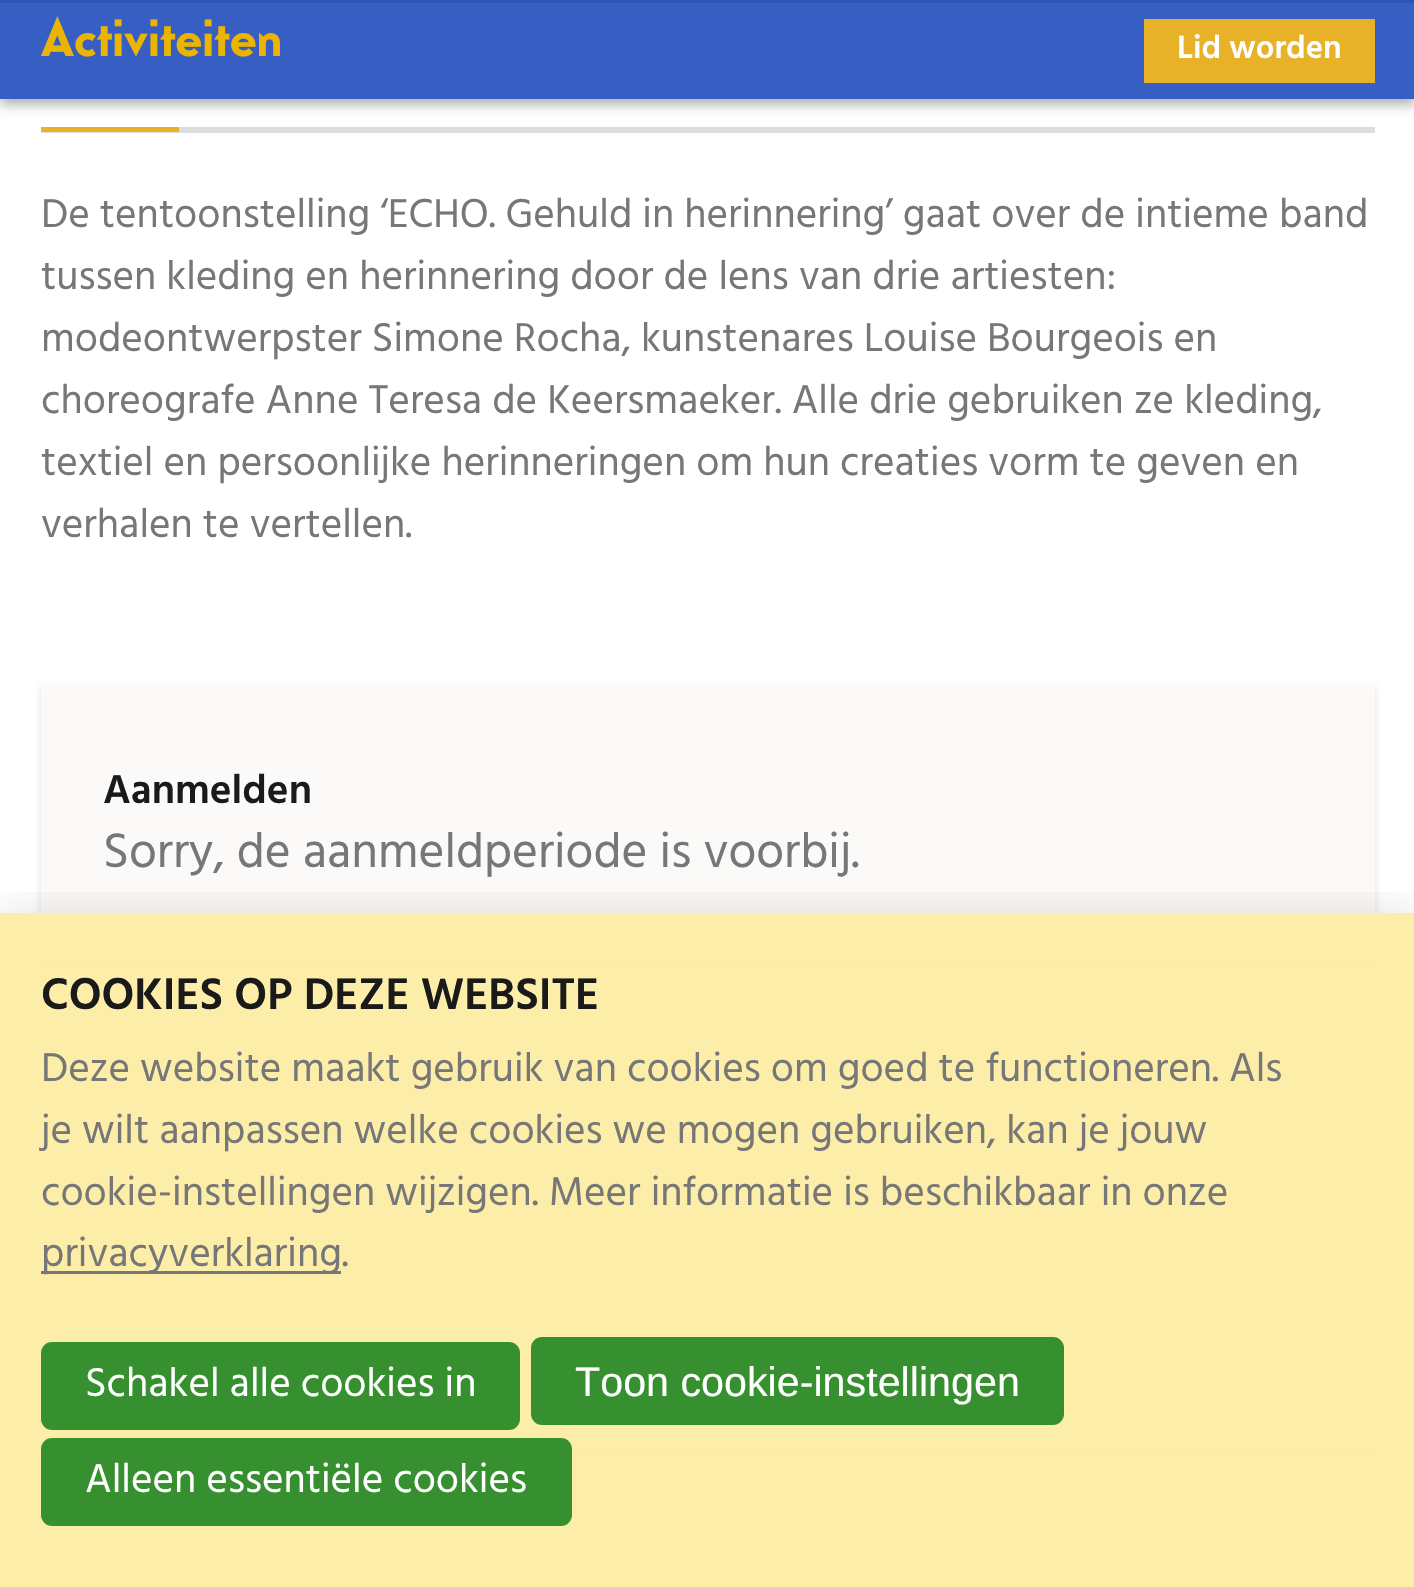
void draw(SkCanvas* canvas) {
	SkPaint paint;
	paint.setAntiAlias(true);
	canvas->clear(0xffffffff);
	paint.setColor(0x4d000000);
	paint.setMaskFilter(SkMaskFilter::MakeBlur(kNormal_SkBlurStyle, 5.5));
	canvas->drawRect(SkRect::MakeXYWH(0, 6, 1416, 99), paint);
	paint.setMaskFilter(nullptr);
	paint.setColor(0xff375fc3);
	canvas->drawRect(SkRect::MakeXYWH(0, 3, 1414, 96), paint);
	paint.setColor(0xff2c53b5);
	canvas->drawRect(SkRect::MakeXYWH(0, 0, 1414, 3), paint);
	SkFont f1(fontMgr->matchFamilyStyle("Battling", SkFontStyle(500, SkFontStyle::kNormal_Width, SkFontStyle::kUpright_Slant)), 49.5);
	f1.setSubpixel(true);
	paint.setColor(0xffebb400);
	canvas->drawString("Activiteiten", 41, 56, f1, paint);
	paint.setColor(0xffe7b128);
	canvas->drawRect(SkRect::MakeXYWH(1144, 19, 231, 64), paint);
	SkFont f2(fontMgr->matchFamilyStyle("Hind", SkFontStyle(600, SkFontStyle::kNormal_Width, SkFontStyle::kUpright_Slant)), 33);
	f2.setSubpixel(true);
	paint.setColor(0xffffffff);
	canvas->drawString("Lid worden", 1177, 58, f2, paint);
	paint.setColor(0xffdddddd);
	canvas->drawRect(SkRect::MakeXYWH(41, 127, 1334, 6), paint);
	paint.setColor(0xffe7b128);
	canvas->drawRect(SkRect::MakeXYWH(41, 127, 138, 5), paint);
	SkFont f3(fontMgr->matchFamilyStyle("Hind", SkFontStyle::Normal()), 41.25);
	f3.setSubpixel(true);
	paint.setColor(0xff777777);
	canvas->drawString("De tentoonstelling ‘ECHO. Gehuld in herinnering’ gaat over de intieme band", 41, 227, f3, paint);
	canvas->drawString("tussen kleding en herinnering door de lens van drie artiesten:", 41, 289, f3, paint);
	canvas->drawString("modeontwerpster Simone Rocha, kunstenares Louise Bourgeois en", 41, 351, f3, paint);
	canvas->drawString("choreografe Anne Teresa de Keersmaeker. Alle drie gebruiken ze kleding,", 41, 413, f3, paint);
	canvas->drawString("textiel en persoonlijke herinneringen om hun creaties vorm te geven en", 41, 475, f3, paint);
	canvas->drawString("verhalen te vertellen.", 41, 537, f3, paint);
	paint.setColor(0xffdddddd);
	paint.setMaskFilter(SkMaskFilter::MakeBlur(kNormal_SkBlurStyle, 3));
	canvas->drawRect(SkRect::MakeXYWH(41, 688, 1334, 275), paint);
	paint.setMaskFilter(nullptr);
	paint.setColor(0xfffbfaf9);
	canvas->drawRect(SkRect::MakeXYWH(41, 685, 1334, 275), paint);
	SkFont f4(fontMgr->matchFamilyStyle("Hind", SkFontStyle(600, SkFontStyle::kNormal_Width, SkFontStyle::kUpright_Slant)), 41.25);
	f4.setSubpixel(true);
	paint.setColor(0xff1a1a1a);
	canvas->drawString("Aanmelden", 103, 803, f4, paint);
	SkFont f5(fontMgr->matchFamilyStyle("Hind", SkFontStyle::Normal()), 49.5);
	f5.setSubpixel(true);
	paint.setColor(0xff777777);
	canvas->drawString("Sorry, de aanmeldperiode is voorbij.", 103, 867, f5, paint);
	paint.setColor(0xffdddddd);
	paint.setMaskFilter(SkMaskFilter::MakeBlur(kNormal_SkBlurStyle, 3));
	canvas->drawRect(SkRect::MakeXYWH(41, 1029, 1334, 423), paint);
	paint.setMaskFilter(nullptr);
	paint.setColor(0xfffbfaf9);
	canvas->drawRect(SkRect::MakeXYWH(41, 1026, 1334, 423), paint);
	canvas->save();
	canvas->clipRect(SkRect::MakeXYWH(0, 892, 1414, 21));
	paint.setColor(0x33000000);
	paint.setMaskFilter(SkMaskFilter::MakeBlur(kNormal_SkBlurStyle, 27.5));
	canvas->drawRect(SkRect::MakeXYWH(0, 927, 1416, 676), paint);
	paint.setMaskFilter(nullptr);
	canvas->restore();
	paint.setColor(0xf2fceda3);
	canvas->drawRect(SkRect::MakeXYWH(0, 913, 1414, 674), paint);
	SkFont f6(fontMgr->matchFamilyStyle("Hind", SkFontStyle(600, SkFontStyle::kNormal_Width, SkFontStyle::kUpright_Slant)), 45.4);
	f6.setSubpixel(true);
	paint.setColor(0xff1a1a1a);
	canvas->drawString("COOKIES OP DEZE WEBSITE", 41, 1009, f6, paint);
	paint.setColor(0xff777777);
	canvas->drawString("Deze website maakt gebruik van cookies om goed te functioneren. Als", 41, 1081, f3, paint);
	canvas->drawString("je wilt aanpassen welke cookies we mogen gebruiken, kan je jouw", 41, 1143, f3, paint);
	canvas->drawString("cookie-instellingen wijzigen. Meer informatie is beschikbaar in onze", 41, 1205, f3, paint);
	canvas->drawRect(SkRect::MakeXYWH(41, 1271, 300, 3), paint);
	canvas->drawString("privacyverklaring.", 41, 1266, f3, paint);
	paint.setColor(0xff37902f);
	canvas->drawRoundRect(SkRect::MakeXYWH(42.5, 1343.5, 476, 85), 9.5, 9.5, paint);
	paint.setStroke(true);
	paint.setStrokeWidth(3);
	canvas->drawRoundRect(SkRect::MakeXYWH(42.5, 1343.5, 476, 85), 9.5, 9.5, paint);
	paint.setStroke(false);
	paint.setColor(0xffffffff);
	canvas->drawString("Schakel alle cookies in", 85, 1396, f3, paint);
	paint.setColor(0xff37902f);
	canvas->drawRoundRect(SkRect::MakeXYWH(532.5, 1338.5, 530, 85), 9.5, 9.5, paint);
	paint.setStroke(true);
	canvas->drawRoundRect(SkRect::MakeXYWH(532.5, 1338.5, 530, 85), 9.5, 9.5, paint);
	SkFont f7(fontMgr->matchFamilyStyle("Liberation Sans", SkFontStyle::Normal()), 41.25);
	f7.setSubpixel(true);
	paint.setStroke(false);
	paint.setColor(0xffffffff);
	canvas->drawString("Toon cookie-instellingen", 575, 1396, f7, paint);
	paint.setColor(0xff37902f);
	canvas->drawRoundRect(SkRect::MakeXYWH(42.5, 1439.5, 528, 85), 9.5, 9.5, paint);
	paint.setStroke(true);
	canvas->drawRoundRect(SkRect::MakeXYWH(42.5, 1439.5, 528, 85), 9.5, 9.5, paint);
	paint.setStroke(false);
	paint.setColor(0xffffffff);
	canvas->drawString("Alleen essentiële cookies", 85, 1492, f3, paint);
}
